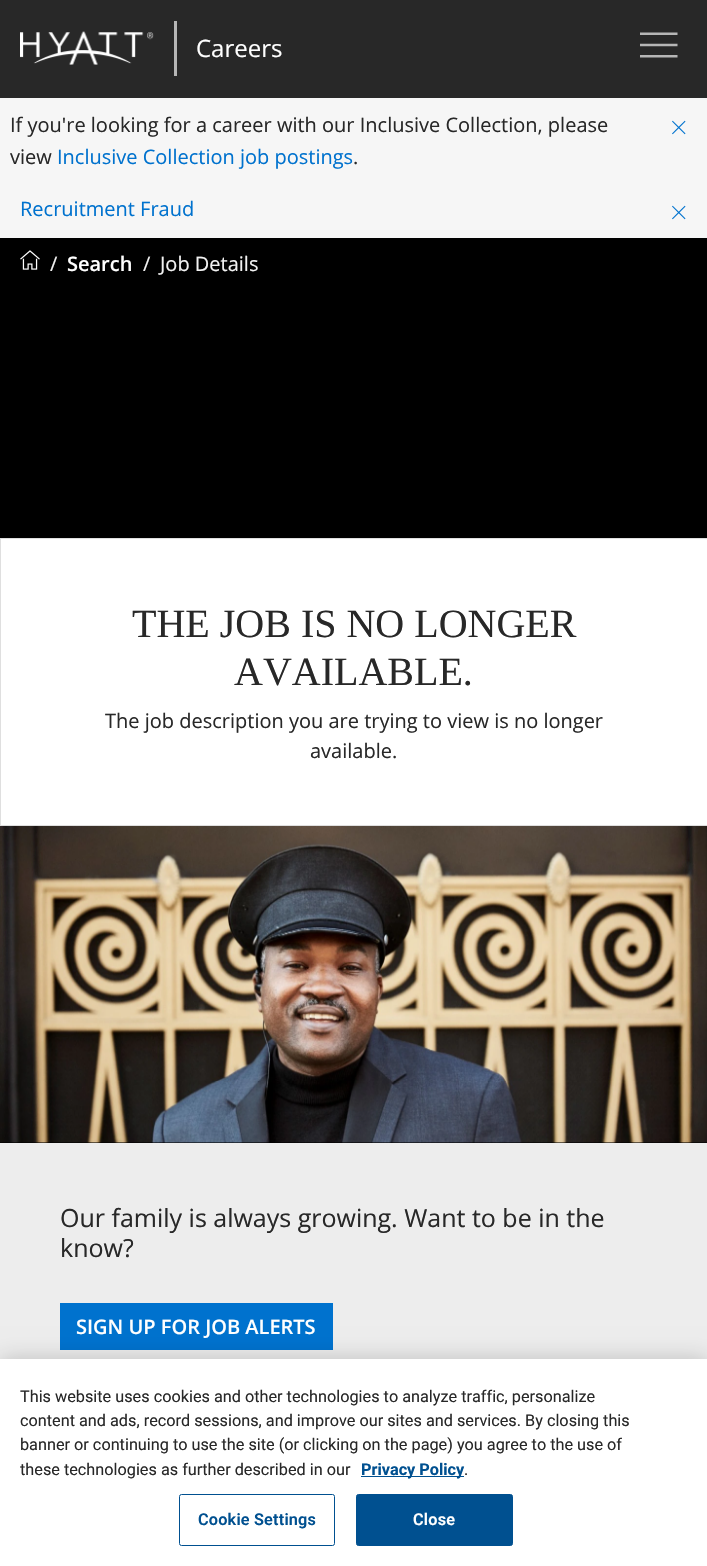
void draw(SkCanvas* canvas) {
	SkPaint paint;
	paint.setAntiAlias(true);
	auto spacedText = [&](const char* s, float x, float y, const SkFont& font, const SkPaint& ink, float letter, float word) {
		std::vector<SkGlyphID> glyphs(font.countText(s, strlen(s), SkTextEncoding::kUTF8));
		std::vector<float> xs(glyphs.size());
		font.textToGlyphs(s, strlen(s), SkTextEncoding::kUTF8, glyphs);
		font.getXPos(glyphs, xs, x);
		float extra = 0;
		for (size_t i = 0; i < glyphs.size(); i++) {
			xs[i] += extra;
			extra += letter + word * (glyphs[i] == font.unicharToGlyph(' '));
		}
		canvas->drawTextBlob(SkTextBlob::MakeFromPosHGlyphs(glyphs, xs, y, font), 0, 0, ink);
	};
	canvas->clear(0xfff6f6f6);
	paint.setColor(0xff282828);
	canvas->drawRect(SkRect::MakeXYWH(0, 0, 707, 98), paint);
	canvas->drawImageRect(SkImages::DeferredFromEncodedData(SkData::MakeFromFileName("img1.png")), SkRect::MakeXYWH(20, 31, 134, 34), SkSamplingOptions());
	paint.setColor(0xffb6b6b6);
	canvas->drawRect(SkRect::MakeXYWH(174, 21, 3, 55), paint);
	SkFont f1(fontMgr->matchFamilyStyle("Open Sans", SkFontStyle::Normal()), 24);
	f1.setSubpixel(true);
	paint.setColor(0xffffffff);
	canvas->drawString("Careers", 196, 57, f1, paint);
	canvas->drawImageRect(SkImages::DeferredFromEncodedData(SkData::MakeFromFileName("img2.png")), SkRect::MakeXYWH(640, 32, 38, 26), SkSamplingOptions());
	SkFont f2(fontMgr->matchFamilyStyle("Open Sans", SkFontStyle::Normal()), 20);
	f2.setSubpixel(true);
	paint.setColor(0xff282828);
	canvas->drawString("If you're looking for a career with our Inclusive Collection, please", 10, 132, f2, paint);
	canvas->drawString("view", 10, 164, f2, paint);
	paint.setColor(0xff0072ce);
	canvas->drawString("Inclusive Collection job postings", 57, 164, f2, paint);
	paint.setColor(0xff282828);
	canvas->drawString(".", 353, 164, f2, paint);
	canvas->drawImageRect(SkImages::DeferredFromEncodedData(SkData::MakeFromFileName("img3.png")), SkRect::MakeXYWH(672, 120, 14, 15), SkSamplingOptions());
	paint.setColor(0xff0072ce);
	canvas->drawString("Recruitment Fraud", 20, 216, f2, paint);
	canvas->drawImageRect(SkImages::DeferredFromEncodedData(SkData::MakeFromFileName("img3.png")), SkRect::MakeXYWH(672, 205, 14, 15), SkSamplingOptions());
	paint.setColor(0xff000000);
	canvas->drawRect(SkRect::MakeXYWH(0, 238, 707, 300), paint);
	canvas->drawImageRect(SkImages::DeferredFromEncodedData(SkData::MakeFromFileName("img4.png")), SkRect::MakeXYWH(20, 250, 20, 20), SkSamplingOptions());
	paint.setColor(0xfff2f2f2);
	canvas->drawString("/", 50, 271, f2, paint);
	SkFont f3(fontMgr->matchFamilyStyle("Open Sans", SkFontStyle(600, SkFontStyle::kNormal_Width, SkFontStyle::kUpright_Slant)), 20);
	f3.setSubpixel(true);
	paint.setColor(0xffffffff);
	canvas->drawString("Search", 67, 271, f3, paint);
	paint.setColor(0xfff2f2f2);
	canvas->drawString("/", 143, 271, f2, paint);
	canvas->drawString("Job Details", 160, 271, f2, paint);
	paint.setColor(0xffffffff);
	canvas->drawRect(SkRect::MakeXYWH(0.5, 538.5, 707, 287), paint);
	paint.setStroke(true);
	paint.setStrokeWidth(1);
	paint.setColor(0xffdfdfdf);
	canvas->drawRect(SkRect::MakeXYWH(0.5, 538.5, 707, 287), paint);
	SkFont f4(fontMgr->matchFamilyStyle("Liberation Serif", SkFontStyle::Normal()), 40);
	f4.setSubpixel(true);
	paint.setStroke(false);
	paint.setColor(0xff282828);
	canvas->drawString("THE JOB IS NO LONGER", 132, 637, f4, paint);
	canvas->drawString("AVAILABLE.", 234, 685, f4, paint);
	canvas->drawString("The job description you are trying to view is no longer", 105, 728, f2, paint);
	canvas->drawString("available.", 310, 758, f2, paint);
	paint.setColor(0xff000000);
	canvas->drawRect(SkRect::MakeXYWH(0, 1142, 707, 1), paint);
	canvas->drawImageRect(SkImages::DeferredFromEncodedData(SkData::MakeFromFileName("img5.png")), SkRect::MakeXYWH(0, 826, 707, 317), SkSamplingOptions());
	paint.setColor(0xffededed);
	canvas->drawRect(SkRect::MakeXYWH(0, 1143, 707, 216), paint);
	SkFont f5(fontMgr->matchFamilyStyle("Open Sans", SkFontStyle::Normal()), 25);
	f5.setSubpixel(true);
	paint.setColor(0xff282828);
	canvas->drawString("Our family is always growing. Want to be in the", 60, 1227, f5, paint);
	canvas->drawString("know?", 60, 1257, f5, paint);
	paint.setColor(0xff0072ce);
	canvas->drawRect(SkRect::MakeXYWH(60, 1303, 273, 47), paint);
	paint.setColor(0xffffffff);
	canvas->drawString("SIGN UP FOR JOB ALERTS", 76, 1334, f3, paint);
	paint.setColor(0x33000000);
	paint.setMaskFilter(SkMaskFilter::MakeBlur(kNormal_SkBlurStyle, 11));
	canvas->drawRect(SkRect::MakeXYWH(0, 1359, 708, 207), paint);
	paint.setMaskFilter(nullptr);
	paint.setColor(0xffffffff);
	canvas->drawRect(SkRect::MakeXYWH(0, 1359, 707, 207), paint);
	SkFont f6(fontMgr->matchFamilyStyle("Roboto", SkFontStyle::Normal()), 16.25);
	f6.setSubpixel(true);
	paint.setColor(0xff282828);
	canvas->drawString("This website uses cookies and other technologies to analyze traffic, personalize", 20, 1402, f6, paint);
	canvas->drawString("content and ads, record sessions, and improve our sites and services. By closing this", 20, 1426, f6, paint);
	canvas->drawString("banner or continuing to use the site (or clicking on the page) you agree to the use of", 20, 1450, f6, paint);
	canvas->drawString("these technologies as further described in our", 20, 1475, f6, paint);
	paint.setColor(0xff005090);
	canvas->drawRect(SkRect::MakeXYWH(361, 1476, 103, 1), paint);
	SkFont f7(fontMgr->matchFamilyStyle("Roboto", SkFontStyle::Bold()), 16.25);
	f7.setSubpixel(true);
	canvas->drawString("Privacy Policy", 361, 1475, f7, paint);
	paint.setColor(0xff282828);
	canvas->drawString(".", 464, 1475, f6, paint);
	paint.setStroke(true);
	paint.setColor(0xff005090);
	canvas->drawRoundRect(SkRect::MakeXYWH(179.5, 1494.5, 155, 51), 2, 2, paint);
	SkFont f8(fontMgr->matchFamilyStyle("Roboto", SkFontStyle(600, SkFontStyle::kNormal_Width, SkFontStyle::kUpright_Slant)), 16.25);
	f8.setSubpixel(true);
	paint.setStroke(false);
	spacedText("Cookie Settings", 198, 1525, f8, paint, 0.2, 0);
	canvas->drawRoundRect(SkRect::MakeXYWH(356.5, 1494.5, 156, 51), 2, 2, paint);
	paint.setStroke(true);
	canvas->drawRoundRect(SkRect::MakeXYWH(356.5, 1494.5, 156, 51), 2, 2, paint);
	paint.setStroke(false);
	paint.setColor(0xffffffff);
	spacedText("Close", 413, 1525, f8, paint, 0.2, 0);
}
